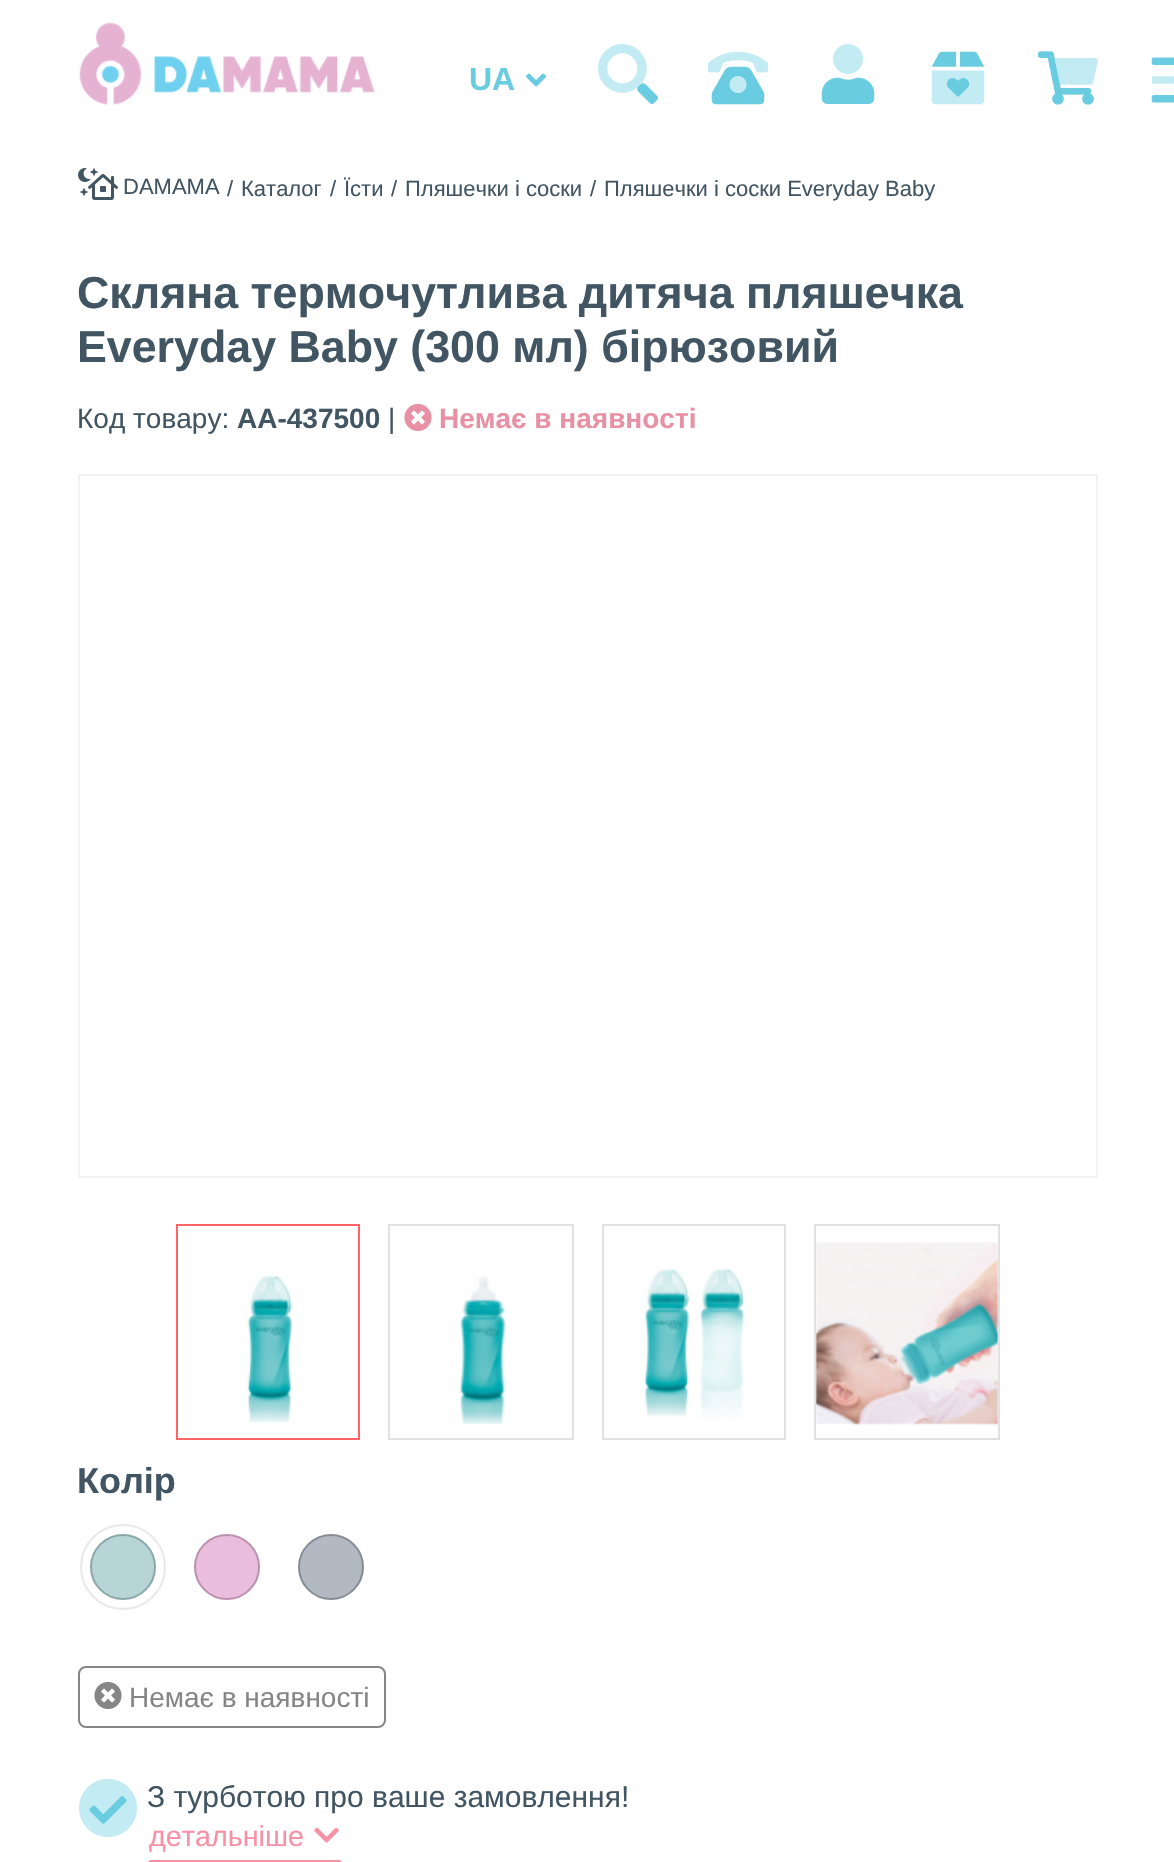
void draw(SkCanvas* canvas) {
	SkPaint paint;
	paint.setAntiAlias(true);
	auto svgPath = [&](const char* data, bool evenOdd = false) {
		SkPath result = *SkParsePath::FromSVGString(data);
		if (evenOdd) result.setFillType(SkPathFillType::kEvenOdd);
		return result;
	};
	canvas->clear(0xffffffff);
	canvas->drawImageRect(SkImages::DeferredFromEncodedData(SkData::MakeFromFileName("img1.png")), SkRect::MakeXYWH(79, 22, 296, 83), SkSamplingOptions());
	SkFont f1(fontMgr->matchFamilyStyle("Liberation Sans", SkFontStyle::Bold()), 32);
	f1.setSubpixel(true);
	paint.setColor(0xff69cce0);
	canvas->drawString("UA", 469, 90, f1, paint);
	canvas->drawImageRect(SkImages::DeferredFromEncodedData(SkData::MakeFromFileName("img2.png")), SkRect::MakeXYWH(526, 73, 20, 14), SkSamplingOptions());
	canvas->drawImageRect(SkImages::DeferredFromEncodedData(SkData::MakeFromFileName("img3.png")), SkRect::MakeXYWH(598, 44, 60, 60), SkSamplingOptions());
	canvas->drawImageRect(SkImages::DeferredFromEncodedData(SkData::MakeFromFileName("img4.png")), SkRect::MakeXYWH(708, 51, 60, 54), SkSamplingOptions());
	canvas->drawImageRect(SkImages::DeferredFromEncodedData(SkData::MakeFromFileName("img5.png")), SkRect::MakeXYWH(821, 44, 54, 60), SkSamplingOptions());
	canvas->drawImageRect(SkImages::DeferredFromEncodedData(SkData::MakeFromFileName("img6.png")), SkRect::MakeXYWH(931, 51, 54, 54), SkSamplingOptions());
	canvas->drawImageRect(SkImages::DeferredFromEncodedData(SkData::MakeFromFileName("img7.png")), SkRect::MakeXYWH(1038, 51, 60, 54), SkSamplingOptions());
	canvas->drawImageRect(SkImages::DeferredFromEncodedData(SkData::MakeFromFileName("img8.png")), SkRect::MakeXYWH(1151, 57, 23, 46), SkSamplingOptions());
	canvas->drawImageRect(SkImages::DeferredFromEncodedData(SkData::MakeFromFileName("img9.png")), SkRect::MakeXYWH(78, 168, 40, 32), SkSamplingOptions());
	SkFont f2(fontMgr->matchFamilyStyle("Liberation Sans", SkFontStyle::Normal()), 22);
	f2.setSubpixel(true);
	paint.setColor(0xff425563);
	canvas->drawString("DAMAMA", 123, 194, f2, paint);
	canvas->drawString("/", 227, 196, f2, paint);
	canvas->drawString("Каталог", 241, 196, f2, paint);
	canvas->drawString("/", 330, 196, f2, paint);
	canvas->drawString("Їсти", 344, 196, f2, paint);
	canvas->drawString("/", 391, 196, f2, paint);
	canvas->drawString("Пляшечки і соски", 405, 196, f2, paint);
	canvas->drawString("/", 590, 196, f2, paint);
	canvas->drawString("Пляшечки і соски Everyday Baby", 604, 196, f2, paint);
	SkFont f3(fontMgr->matchFamilyStyle("Liberation Sans", SkFontStyle::Bold()), 44.75);
	f3.setSubpixel(true);
	canvas->drawString("Скляна термочутлива дитяча пляшечка", 77, 308, f3, paint);
	canvas->drawString("Everyday Baby (300 мл) бірюзовий", 77, 362, f3, paint);
	SkFont f4(fontMgr->matchFamilyStyle("Liberation Sans", SkFontStyle::Normal()), 28);
	f4.setSubpixel(true);
	canvas->drawString("Код товару:", 77, 428, f4, paint);
	SkFont f5(fontMgr->matchFamilyStyle("Liberation Sans", SkFontStyle::Bold()), 28);
	f5.setSubpixel(true);
	canvas->drawString("AA-437500", 237, 428, f5, paint);
	canvas->drawString("|", 388, 428, f4, paint);
	canvas->drawImageRect(SkImages::DeferredFromEncodedData(SkData::MakeFromFileName("img10.png")), SkRect::MakeXYWH(404, 404, 28, 27), SkSamplingOptions());
	paint.setColor(0xffe891a5);
	canvas->drawString("Немає в наявності", 439, 428, f5, paint);
	paint.setStroke(true);
	paint.setStrokeWidth(2);
	paint.setColor(0xfff3f3f3);
	canvas->drawRect(SkRect::MakeXYWH(79, 475, 1018, 702), paint);
	canvas->drawImageRect(SkImages::DeferredFromEncodedData(SkData::MakeFromFileName("img11.png")), SkRect::MakeXYWH(247, 1275, 45, 148), SkSamplingOptions());
	paint.setColor(0xfffc6563);
	canvas->drawRect(SkRect::MakeXYWH(177, 1225, 182, 214), paint);
	canvas->drawImageRect(SkImages::DeferredFromEncodedData(SkData::MakeFromFileName("img12.png")), SkRect::MakeXYWH(460, 1275, 46, 150), SkSamplingOptions());
	paint.setColor(0xffe1e1e1);
	canvas->drawRect(SkRect::MakeXYWH(389, 1225, 184, 214), paint);
	canvas->drawImageRect(SkImages::DeferredFromEncodedData(SkData::MakeFromFileName("img13.png")), SkRect::MakeXYWH(644, 1268, 101, 151), SkSamplingOptions());
	canvas->drawRect(SkRect::MakeXYWH(603, 1225, 182, 214), paint);
	canvas->drawImageRect(SkImages::DeferredFromEncodedData(SkData::MakeFromFileName("img14.png")), SkRect::MakeXYWH(816, 1242, 182, 184), SkSamplingOptions());
	canvas->drawRect(SkRect::MakeXYWH(815, 1225, 184, 214), paint);
	SkFont f6(fontMgr->matchFamilyStyle("Liberation Sans", SkFontStyle::Bold()), 36);
	f6.setSubpixel(true);
	paint.setStroke(false);
	paint.setColor(0xff425563);
	canvas->drawString("Колір", 77, 1493, f6, paint);
	paint.setStroke(true);
	paint.setColor(0xffbfbfbf);
	canvas->drawCircle(123, 1567, 32, paint);
	paint.setStroke(false);
	paint.setColor(0x4d0f7379);
	canvas->drawCircle(123, 1567, 33, paint);
	paint.setStroke(true);
	paint.setColor(0xffe9e9e9);
	canvas->drawCircle(123, 1567, 42, paint);
	paint.setColor(0xffbfbfbf);
	canvas->drawCircle(227, 1567, 32, paint);
	paint.setStroke(false);
	paint.setColor(0x4db62389);
	canvas->drawCircle(227, 1567, 33, paint);
	paint.setStroke(true);
	paint.setColor(0xffbfbfbf);
	canvas->drawCircle(331, 1567, 32, paint);
	paint.setStroke(false);
	paint.setColor(0x4d011836);
	canvas->drawCircle(331, 1567, 33, paint);
	paint.setStroke(true);
	paint.setColor(0xff868686);
	canvas->drawRoundRect(SkRect::MakeXYWH(79, 1667, 306, 60), 7, 7, paint);
	canvas->drawImageRect(SkImages::DeferredFromEncodedData(SkData::MakeFromFileName("img15.png")), SkRect::MakeXYWH(94, 1682, 28, 27), SkSamplingOptions());
	paint.setStroke(false);
	canvas->drawString("Немає в наявності", 129, 1707, f4, paint);
	canvas->drawImageRect(SkImages::DeferredFromEncodedData(SkData::MakeFromFileName("img16.png")), SkRect::MakeXYWH(79, 1779, 58, 58), SkSamplingOptions());
	SkFont f7(fontMgr->matchFamilyStyle("Liberation Sans", SkFontStyle::Normal()), 30);
	f7.setSubpixel(true);
	paint.setColor(0xff425563);
	canvas->drawString("З турботою про ваше замовлення!", 147, 1807, f7, paint);
	paint.setColor(0xfff891a5);
	canvas->drawPath(svgPath("M342 1862H148L150 1860H340Z"), paint);
	SkFont f8(fontMgr->matchFamilyStyle("Liberation Sans", SkFontStyle::Normal()), 28.75);
	f8.setSubpixel(true);
	canvas->drawString("детальніше", 149, 1846, f8, paint);
	canvas->drawImageRect(SkImages::DeferredFromEncodedData(SkData::MakeFromFileName("img17.png")), SkRect::MakeXYWH(314, 1827, 25, 16), SkSamplingOptions());
}
